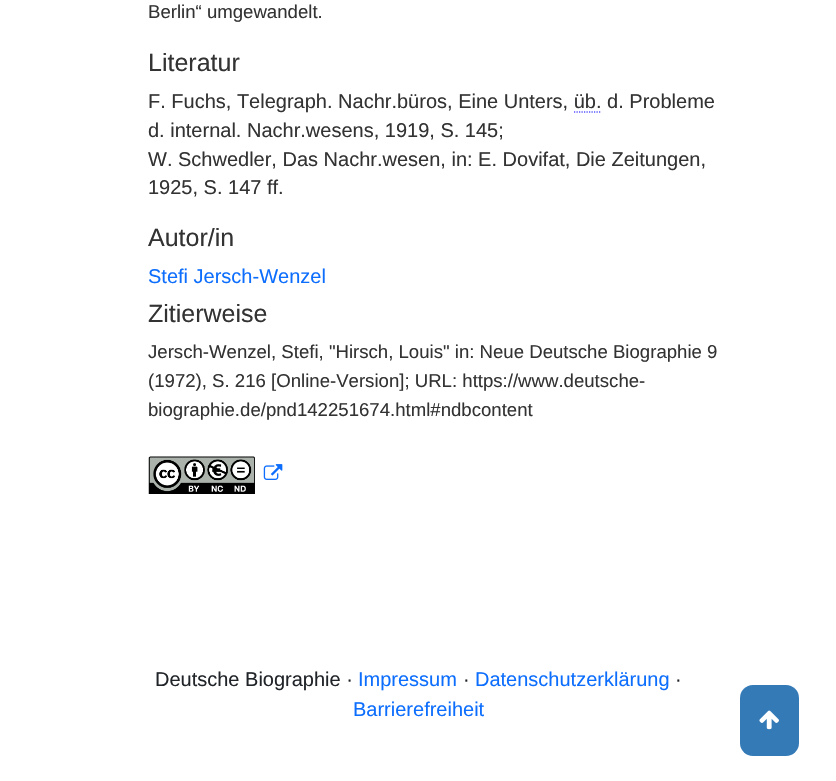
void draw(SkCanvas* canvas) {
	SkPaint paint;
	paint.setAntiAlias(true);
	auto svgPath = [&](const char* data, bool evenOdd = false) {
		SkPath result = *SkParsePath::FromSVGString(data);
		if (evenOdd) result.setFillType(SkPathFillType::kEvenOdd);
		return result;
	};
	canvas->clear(0xffffffff);
	SkFont f1(fontMgr->matchFamilyStyle("Liberation Sans", SkFontStyle::Normal()), 18.6);
	f1.setSubpixel(true);
	paint.setColor(0xff333333);
	canvas->drawString("Berlin“ umgewandelt.", 148, 18, f1, paint);
	SkFont f2(fontMgr->matchFamilyStyle("Liberation Sans", SkFontStyle::Normal()), 25);
	f2.setSubpixel(true);
	canvas->drawString("Literatur", 148, 71, f2, paint);
	SkFont f3(fontMgr->matchFamilyStyle("Liberation Sans", SkFontStyle::Normal()), 20);
	f3.setSubpixel(true);
	canvas->drawString("F. Fuchs, Telegraph. Nachr.büros, Eine Unters, üb. d. Probleme", 148, 108, f3, paint);
	paint.setStroke(true);
	paint.setStrokeWidth(1.2);
	paint.setColor(0xff0000ff);
	paint.setPathEffect(SkDashPathEffect::Make({{1.25f, 1.25f}}, 0));
	canvas->drawPath(svgPath("M574 112H601"), paint);
	paint.setPathEffect(nullptr);
	paint.setStroke(false);
	paint.setColor(0xff333333);
	canvas->drawString("d. internal. Nachr.wesens, 1919, S. 145;", 148, 137, f3, paint);
	canvas->drawString("W. Schwedler, Das Nachr.wesen, in: E. Dovifat, Die Zeitungen,", 148, 166, f3, paint);
	canvas->drawString("1925, S. 147 ff.", 148, 194, f3, paint);
	canvas->drawString("Autor/in", 148, 246, f2, paint);
	paint.setColor(0xff0d6efd);
	canvas->drawString("Stefi Jersch-Wenzel", 148, 283, f3, paint);
	paint.setColor(0xff333333);
	canvas->drawString("Zitierweise", 148, 322, f2, paint);
	canvas->drawString("Jersch-Wenzel, Stefi, \"Hirsch, Louis\" in: Neue Deutsche Biographie 9", 148, 358, f1, paint);
	canvas->drawString("(1972), S. 216 [Online-Version]; URL: https://www.deutsche-", 148, 387, f1, paint);
	canvas->drawString("biographie.de/pnd142251674.html#ndbcontent", 148, 416, f1, paint);
	canvas->drawImageRect(SkImages::DeferredFromEncodedData(SkData::MakeFromFileName("img1.png")), SkRect::MakeXYWH(148, 456, 107, 38), SkSamplingOptions());
	canvas->drawImageRect(SkImages::DeferredFromEncodedData(SkData::MakeFromFileName("img2.png")), SkRect::MakeXYWH(263, 464, 20, 16), SkSamplingOptions());
	paint.setColor(0xff337ab7);
	canvas->drawRoundRect(SkRect::MakeXYWH(740, 685, 59, 71), 13, 13, paint);
	canvas->drawImageRect(SkImages::DeferredFromEncodedData(SkData::MakeFromFileName("img3.png")), SkRect::MakeXYWH(759, 710, 20, 20), SkSamplingOptions());
	paint.setColor(0xff212529);
	canvas->drawString("Deutsche Biographie ·", 155, 686, f3, paint);
	paint.setColor(0xff0d6efd);
	canvas->drawString("Impressum", 358, 686, f3, paint);
	paint.setColor(0xff212529);
	canvas->drawString("·", 463, 686, f3, paint);
	paint.setColor(0xff0d6efd);
	canvas->drawString("Datenschutzerklärung", 475, 686, f3, paint);
	paint.setColor(0xff212529);
	canvas->drawString("·", 675, 686, f3, paint);
	paint.setColor(0xff0d6efd);
	canvas->drawString("Barrierefreiheit", 353, 716, f3, paint);
}
